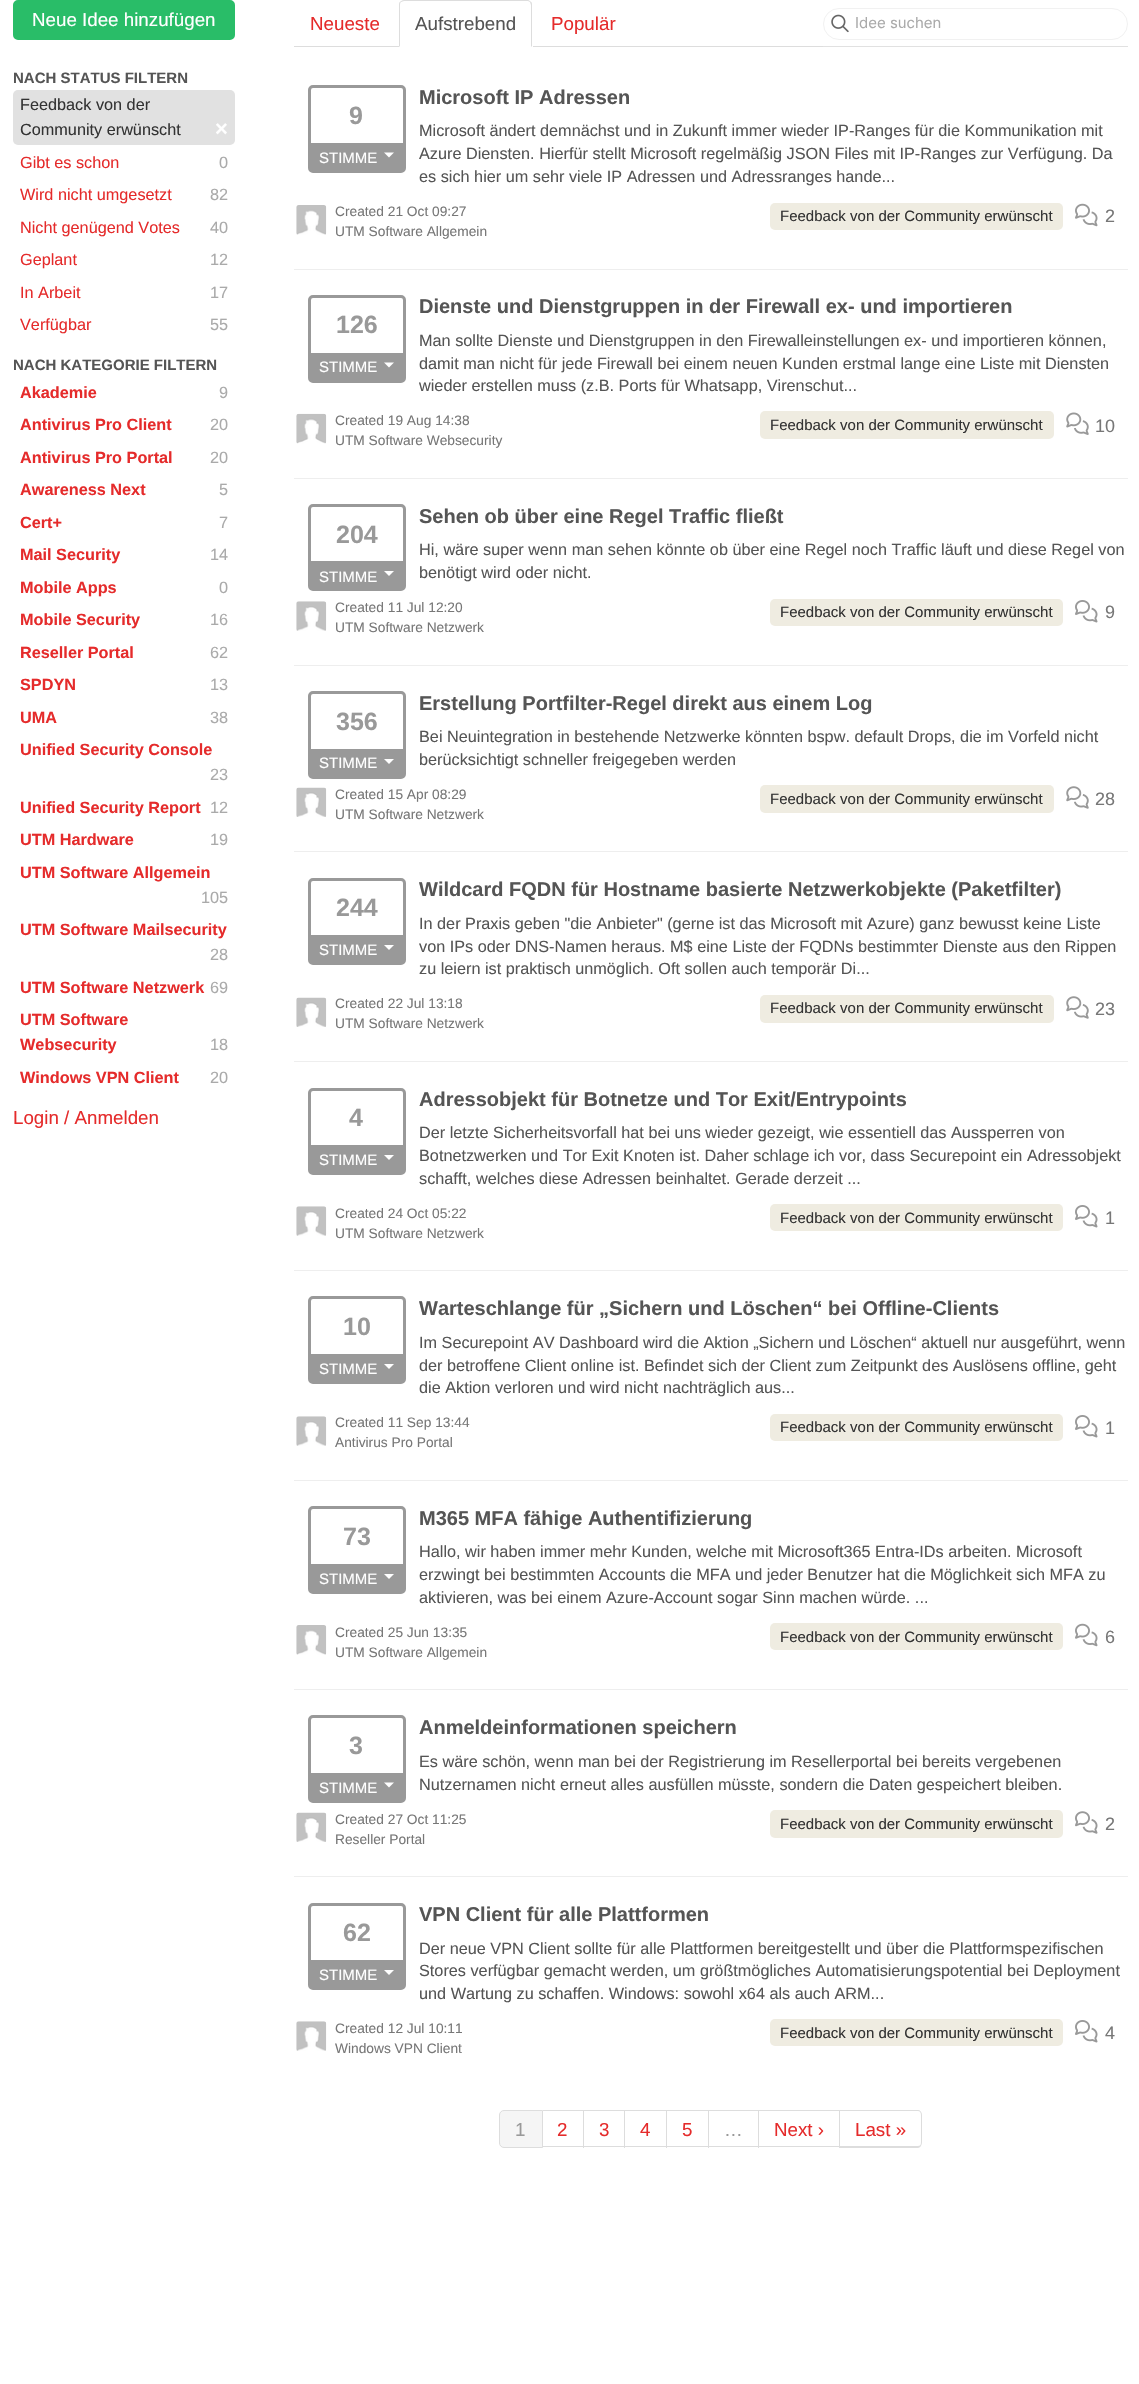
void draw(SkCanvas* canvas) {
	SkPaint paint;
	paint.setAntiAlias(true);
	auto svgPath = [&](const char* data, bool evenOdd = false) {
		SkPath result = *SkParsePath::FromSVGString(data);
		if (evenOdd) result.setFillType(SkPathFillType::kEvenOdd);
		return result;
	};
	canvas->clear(0xffffffff);
	paint.setColor(0xff29bd68);
	canvas->drawRoundRect(SkRect::MakeXYWH(14.5, 1.5, 219, 37), 3.5, 3.5, paint);
	paint.setStroke(true);
	paint.setStrokeWidth(3);
	canvas->drawRoundRect(SkRect::MakeXYWH(14.5, 1.5, 219, 37), 3.5, 3.5, paint);
	SkFont f1(fontMgr->matchFamilyStyle("Liberation Sans", SkFontStyle::Normal()), 18.75);
	f1.setSubpixel(true);
	paint.setStroke(false);
	paint.setColor(0xffffffff);
	canvas->drawString("Neue Idee hinzufügen", 32, 26, f1, paint);
	SkFont f2(fontMgr->matchFamilyStyle("Liberation Sans", SkFontStyle::Bold()), 15);
	f2.setSubpixel(true);
	paint.setColor(0xff555555);
	canvas->drawString("NACH STATUS FILTERN", 13, 83, f2, paint);
	paint.setColor(0xffe1e1e1);
	canvas->drawRoundRect(SkRect::MakeXYWH(13, 90, 222, 55), 5, 5, paint);
	SkFont f3(fontMgr->matchFamilyStyle("Liberation Sans", SkFontStyle::Normal()), 16.25);
	f3.setSubpixel(true);
	paint.setColor(0xff333333);
	canvas->drawString("Feedback von der", 20, 110, f3, paint);
	canvas->drawString("Community erwünscht", 20, 135, f3, paint);
	SkFont f4(fontMgr->matchFamilyStyle("Liberation Sans", SkFontStyle::Bold()), 22);
	f4.setSubpixel(true);
	paint.setColor(0xffffffff);
	canvas->drawString("×", 215, 136, f4, paint);
	paint.setColor(0xffe52b2b);
	canvas->drawString("Gibt es schon", 20, 168, f3, paint);
	paint.setColor(0xffaaaaaa);
	canvas->drawString("0", 219, 168, f3, paint);
	paint.setColor(0xffe52b2b);
	canvas->drawString("Wird nicht umgesetzt", 20, 200, f3, paint);
	paint.setColor(0xffaaaaaa);
	canvas->drawString("82", 210, 200, f3, paint);
	paint.setColor(0xffe52b2b);
	canvas->drawString("Nicht genügend Votes", 20, 233, f3, paint);
	paint.setColor(0xffaaaaaa);
	canvas->drawString("40", 210, 233, f3, paint);
	paint.setColor(0xffe52b2b);
	canvas->drawString("Geplant", 20, 265, f3, paint);
	paint.setColor(0xffaaaaaa);
	canvas->drawString("12", 210, 265, f3, paint);
	paint.setColor(0xffe52b2b);
	canvas->drawString("In Arbeit", 20, 298, f3, paint);
	paint.setColor(0xffaaaaaa);
	canvas->drawString("17", 210, 298, f3, paint);
	paint.setColor(0xffe52b2b);
	canvas->drawString("Verfügbar", 20, 330, f3, paint);
	paint.setColor(0xffaaaaaa);
	canvas->drawString("55", 210, 330, f3, paint);
	paint.setColor(0xff555555);
	canvas->drawString("NACH KATEGORIE FILTERN", 13, 370, f2, paint);
	SkFont f5(fontMgr->matchFamilyStyle("Liberation Sans", SkFontStyle::Bold()), 16.25);
	f5.setSubpixel(true);
	paint.setColor(0xffe52b2b);
	canvas->drawString("Akademie", 20, 398, f5, paint);
	paint.setColor(0xffaaaaaa);
	canvas->drawString("9", 219, 398, f3, paint);
	paint.setColor(0xffe52b2b);
	canvas->drawString("Antivirus Pro Client", 20, 430, f5, paint);
	paint.setColor(0xffaaaaaa);
	canvas->drawString("20", 210, 430, f3, paint);
	paint.setColor(0xffe52b2b);
	canvas->drawString("Antivirus Pro Portal", 20, 463, f5, paint);
	paint.setColor(0xffaaaaaa);
	canvas->drawString("20", 210, 463, f3, paint);
	paint.setColor(0xffe52b2b);
	canvas->drawString("Awareness Next", 20, 495, f5, paint);
	paint.setColor(0xffaaaaaa);
	canvas->drawString("5", 219, 495, f3, paint);
	paint.setColor(0xffe52b2b);
	canvas->drawString("Cert+", 20, 528, f5, paint);
	paint.setColor(0xffaaaaaa);
	canvas->drawString("7", 219, 528, f3, paint);
	paint.setColor(0xffe52b2b);
	canvas->drawString("Mail Security", 20, 560, f5, paint);
	paint.setColor(0xffaaaaaa);
	canvas->drawString("14", 210, 560, f3, paint);
	paint.setColor(0xffe52b2b);
	canvas->drawString("Mobile Apps", 20, 593, f5, paint);
	paint.setColor(0xffaaaaaa);
	canvas->drawString("0", 219, 593, f3, paint);
	paint.setColor(0xffe52b2b);
	canvas->drawString("Mobile Security", 20, 625, f5, paint);
	paint.setColor(0xffaaaaaa);
	canvas->drawString("16", 210, 625, f3, paint);
	paint.setColor(0xffe52b2b);
	canvas->drawString("Reseller Portal", 20, 658, f5, paint);
	paint.setColor(0xffaaaaaa);
	canvas->drawString("62", 210, 658, f3, paint);
	paint.setColor(0xffe52b2b);
	canvas->drawString("SPDYN", 20, 690, f5, paint);
	paint.setColor(0xffaaaaaa);
	canvas->drawString("13", 210, 690, f3, paint);
	paint.setColor(0xffe52b2b);
	canvas->drawString("UMA", 20, 723, f5, paint);
	paint.setColor(0xffaaaaaa);
	canvas->drawString("38", 210, 723, f3, paint);
	paint.setColor(0xffe52b2b);
	canvas->drawString("Unified Security Console", 20, 755, f5, paint);
	paint.setColor(0xffaaaaaa);
	canvas->drawString("23", 210, 780, f3, paint);
	paint.setColor(0xffe52b2b);
	canvas->drawString("Unified Security Report", 20, 813, f5, paint);
	paint.setColor(0xffaaaaaa);
	canvas->drawString("12", 210, 813, f3, paint);
	paint.setColor(0xffe52b2b);
	canvas->drawString("UTM Hardware", 20, 845, f5, paint);
	paint.setColor(0xffaaaaaa);
	canvas->drawString("19", 210, 845, f3, paint);
	paint.setColor(0xffe52b2b);
	canvas->drawString("UTM Software Allgemein", 20, 878, f5, paint);
	paint.setColor(0xffaaaaaa);
	canvas->drawString("105", 201, 903, f3, paint);
	paint.setColor(0xffe52b2b);
	canvas->drawString("UTM Software Mailsecurity", 20, 935, f5, paint);
	paint.setColor(0xffaaaaaa);
	canvas->drawString("28", 210, 960, f3, paint);
	paint.setColor(0xffe52b2b);
	canvas->drawString("UTM Software Netzwerk", 20, 993, f5, paint);
	paint.setColor(0xffaaaaaa);
	canvas->drawString("69", 210, 993, f3, paint);
	paint.setColor(0xffe52b2b);
	canvas->drawString("UTM Software", 20, 1025, f5, paint);
	canvas->drawString("Websecurity", 20, 1050, f5, paint);
	paint.setColor(0xffaaaaaa);
	canvas->drawString("18", 210, 1050, f3, paint);
	paint.setColor(0xffe52b2b);
	canvas->drawString("Windows VPN Client", 20, 1083, f5, paint);
	paint.setColor(0xffaaaaaa);
	canvas->drawString("20", 210, 1083, f3, paint);
	paint.setColor(0xffe52b2b);
	canvas->drawString("Login / Anmelden", 13, 1124, f1, paint);
	paint.setColor(0xffdddddd);
	canvas->drawRect(SkRect::MakeXYWH(294, 46, 529, 1), paint);
	paint.setColor(0xffe52b2b);
	canvas->drawString("Neueste", 310, 30, f1, paint);
	paint.setColor(0xffffffff);
	canvas->drawPath(svgPath("M404 0H528C531 0 533 2 533 5V48H399V5C399 2 401 0 404 0Z"), paint);
	paint.setColor(0xffdddddd);
	canvas->drawPath(svgPath("M404 0C402 0 401 1 400 2H401L404 1H528L530 2H531C530 1 529 0 528 0Z"), paint);
	canvas->drawPath(svgPath("M531 2C532 2 532 4 532 5V47L531 46V5L530 2Z"), paint);
	canvas->drawPath(svgPath("M400 2C399 2 399 4 399 5V47L400 46V5C400 4 400 3 401 2Z"), paint);
	paint.setColor(0xff555555);
	canvas->drawString("Aufstrebend", 415, 30, f1, paint);
	paint.setColor(0xffe52b2b);
	canvas->drawString("Populär", 551, 30, f1, paint);
	paint.setColor(0xffe1e1e1);
	canvas->drawRect(SkRect::MakeXYWH(823, 46, 305, 1), paint);
	paint.setStroke(true);
	paint.setStrokeWidth(1);
	paint.setColor(0xfff1f1f1);
	canvas->drawRoundRect(SkRect::MakeXYWH(823.5, 8.5, 304, 31), 15.5, 15.5, paint);
	canvas->drawImageRect(SkImages::DeferredFromEncodedData(SkData::MakeFromFileName("img1.png")), SkRect::MakeXYWH(831, 14, 18, 19), SkSamplingOptions());
	SkFont f6(fontMgr->matchFamilyStyle("Inter", SkFontStyle::Normal()), 15);
	f6.setSubpixel(true);
	paint.setStroke(false);
	paint.setColor(0xffaaaaaa);
	canvas->drawString("Idee suchen", 855, 28, f6, paint);
	paint.setColor(0xffeeeeee);
	canvas->drawRect(SkRect::MakeXYWH(294, 269, 834, 1), paint);
	SkFont f7(fontMgr->matchFamilyStyle("Liberation Sans", SkFontStyle::Bold()), 20);
	f7.setSubpixel(true);
	paint.setColor(0xff555555);
	canvas->drawString("Microsoft IP Adressen", 419, 104, f7, paint);
	canvas->drawString("Microsoft ändert demnächst und in Zukunft immer wieder IP-Ranges für die Kommunikation mit", 419, 136, f3, paint);
	canvas->drawString("Azure Diensten. Hierfür stellt Microsoft regelmäßig JSON Files mit IP-Ranges zur Verfügung. Da", 419, 159, f3, paint);
	canvas->drawString("es sich hier um sehr viele IP Adressen und Adressranges hande...", 419, 182, f3, paint);
	canvas->drawImageRect(SkImages::DeferredFromEncodedData(SkData::MakeFromFileName("img2.png")), SkRect::MakeXYWH(296, 205, 31, 30), SkSamplingOptions());
	SkFont f8(fontMgr->matchFamilyStyle("Liberation Sans", SkFontStyle::Normal()), 13.75);
	f8.setSubpixel(true);
	paint.setColor(0xff777777);
	canvas->drawString("Created 21 Oct 09:27", 335, 216, f8, paint);
	canvas->drawString("UTM Software Allgemein", 335, 236, f8, paint);
	paint.setColor(0xffefece1);
	canvas->drawRoundRect(SkRect::MakeXYWH(770, 203, 293, 27), 5, 5, paint);
	SkFont f9(fontMgr->matchFamilyStyle("Liberation Sans", SkFontStyle::Normal()), 15);
	f9.setSubpixel(true);
	paint.setColor(0xff333333);
	canvas->drawString("Feedback von der Community erwünscht", 780, 221, f9, paint);
	canvas->drawImageRect(SkImages::DeferredFromEncodedData(SkData::MakeFromFileName("img3.png")), SkRect::MakeXYWH(1075, 203, 23, 24), SkSamplingOptions());
	SkFont f10(fontMgr->matchFamilyStyle("Liberation Sans", SkFontStyle::Normal()), 18);
	f10.setSubpixel(true);
	paint.setColor(0xff777777);
	canvas->drawString("2", 1105, 222, f10, paint);
	paint.setStroke(true);
	paint.setStrokeWidth(3);
	paint.setColor(0xff999999);
	canvas->drawRoundRect(SkRect::MakeXYWH(309.5, 86.5, 95, 85), 3.5, 3.5, paint);
	SkFont f11(fontMgr->matchFamilyStyle("Liberation Sans", SkFontStyle::Bold()), 25);
	f11.setSubpixel(true);
	paint.setStroke(false);
	canvas->drawString("9", 349, 124, f11, paint);
	canvas->drawRect(SkRect::MakeXYWH(311, 143, 92, 27), paint);
	paint.setColor(0xffffffff);
	canvas->drawString("STIMME", 319, 163, f9, paint);
	canvas->drawPath(svgPath("M384 152.5H394L389 157.5Z"), paint);
	paint.setColor(0xffeeeeee);
	canvas->drawRect(SkRect::MakeXYWH(294, 478, 834, 1), paint);
	paint.setColor(0xff555555);
	canvas->drawString("Dienste und Dienstgruppen in der Firewall ex- und importieren", 419, 313, f7, paint);
	canvas->drawString("Man sollte Dienste und Dienstgruppen in den Firewalleinstellungen ex- und importieren können,", 419, 346, f3, paint);
	canvas->drawString("damit man nicht für jede Firewall bei einem neuen Kunden erstmal lange eine Liste mit Diensten", 419, 369, f3, paint);
	canvas->drawString("wieder erstellen muss (z.B. Ports für Whatsapp, Virenschut...", 419, 391, f3, paint);
	canvas->drawImageRect(SkImages::DeferredFromEncodedData(SkData::MakeFromFileName("img4.png")), SkRect::MakeXYWH(296, 413, 31, 31), SkSamplingOptions());
	paint.setColor(0xff777777);
	canvas->drawString("Created 19 Aug 14:38", 335, 425, f8, paint);
	canvas->drawString("UTM Software Websecurity", 335, 445, f8, paint);
	paint.setColor(0xffefece1);
	canvas->drawRoundRect(SkRect::MakeXYWH(760, 411, 294, 28), 5, 5, paint);
	paint.setColor(0xff333333);
	canvas->drawString("Feedback von der Community erwünscht", 770, 430, f9, paint);
	canvas->drawImageRect(SkImages::DeferredFromEncodedData(SkData::MakeFromFileName("img5.png")), SkRect::MakeXYWH(1066, 412, 23, 23), SkSamplingOptions());
	paint.setColor(0xff777777);
	canvas->drawString("10", 1095, 432, f10, paint);
	paint.setStroke(true);
	paint.setColor(0xff999999);
	canvas->drawRoundRect(SkRect::MakeXYWH(309.5, 296.5, 95, 85), 3.5, 3.5, paint);
	paint.setStroke(false);
	canvas->drawString("126", 336, 333, f11, paint);
	canvas->drawRect(SkRect::MakeXYWH(311, 353, 92, 27), paint);
	paint.setColor(0xffffffff);
	canvas->drawString("STIMME", 319, 372, f9, paint);
	canvas->drawPath(svgPath("M384 362.5H394L389 367.5Z"), paint);
	paint.setColor(0xffeeeeee);
	canvas->drawRect(SkRect::MakeXYWH(294, 665, 834, 1), paint);
	paint.setColor(0xff555555);
	canvas->drawString("Sehen ob über eine Regel Traffic fließt", 419, 523, f7, paint);
	canvas->drawString("Hi, wäre super wenn man sehen könnte ob über eine Regel noch Traffic läuft und diese Regel von", 419, 555, f3, paint);
	canvas->drawString("benötigt wird oder nicht.", 419, 578, f3, paint);
	canvas->drawImageRect(SkImages::DeferredFromEncodedData(SkData::MakeFromFileName("img6.png")), SkRect::MakeXYWH(296, 601, 31, 30), SkSamplingOptions());
	paint.setColor(0xff777777);
	canvas->drawString("Created 11 Jul 12:20", 335, 612, f8, paint);
	canvas->drawString("UTM Software Netzwerk", 335, 632, f8, paint);
	paint.setColor(0xffefece1);
	canvas->drawRoundRect(SkRect::MakeXYWH(770, 599, 293, 27), 5, 5, paint);
	paint.setColor(0xff333333);
	canvas->drawString("Feedback von der Community erwünscht", 780, 617, f9, paint);
	canvas->drawImageRect(SkImages::DeferredFromEncodedData(SkData::MakeFromFileName("img7.png")), SkRect::MakeXYWH(1075, 600, 23, 23), SkSamplingOptions());
	paint.setColor(0xff777777);
	canvas->drawString("9", 1105, 618, f10, paint);
	paint.setStroke(true);
	paint.setColor(0xff999999);
	canvas->drawRoundRect(SkRect::MakeXYWH(309.5, 505.5, 95, 84), 3.5, 3.5, paint);
	paint.setStroke(false);
	canvas->drawString("204", 336, 543, f11, paint);
	canvas->drawRect(SkRect::MakeXYWH(311, 561, 92, 27), paint);
	paint.setColor(0xffffffff);
	canvas->drawString("STIMME", 319, 582, f9, paint);
	canvas->drawPath(svgPath("M384 571H394L389 576Z"), paint);
	paint.setColor(0xffeeeeee);
	canvas->drawRect(SkRect::MakeXYWH(294, 851, 834, 1), paint);
	paint.setColor(0xff555555);
	canvas->drawString("Erstellung Portfilter-Regel direkt aus einem Log", 419, 710, f7, paint);
	canvas->drawString("Bei Neuintegration in bestehende Netzwerke könnten bspw. default Drops, die im Vorfeld nicht", 419, 742, f3, paint);
	canvas->drawString("berücksichtigt schneller freigegeben werden", 419, 765, f3, paint);
	canvas->drawImageRect(SkImages::DeferredFromEncodedData(SkData::MakeFromFileName("img8.png")), SkRect::MakeXYWH(296, 787, 31, 30), SkSamplingOptions());
	paint.setColor(0xff777777);
	canvas->drawString("Created 15 Apr 08:29", 335, 799, f8, paint);
	canvas->drawString("UTM Software Netzwerk", 335, 819, f8, paint);
	paint.setColor(0xffefece1);
	canvas->drawRoundRect(SkRect::MakeXYWH(760, 785, 294, 28), 5, 5, paint);
	paint.setColor(0xff333333);
	canvas->drawString("Feedback von der Community erwünscht", 770, 804, f9, paint);
	canvas->drawImageRect(SkImages::DeferredFromEncodedData(SkData::MakeFromFileName("img9.png")), SkRect::MakeXYWH(1066, 786, 23, 23), SkSamplingOptions());
	paint.setColor(0xff777777);
	canvas->drawString("28", 1095, 805, f10, paint);
	paint.setStroke(true);
	paint.setColor(0xff999999);
	canvas->drawRoundRect(SkRect::MakeXYWH(309.5, 692.5, 95, 85), 3.5, 3.5, paint);
	paint.setStroke(false);
	canvas->drawString("356", 336, 730, f11, paint);
	canvas->drawRect(SkRect::MakeXYWH(311, 749, 92, 27), paint);
	paint.setColor(0xffffffff);
	canvas->drawString("STIMME", 319, 768, f9, paint);
	canvas->drawPath(svgPath("M384 759H394L389 764Z"), paint);
	paint.setColor(0xffeeeeee);
	canvas->drawRect(SkRect::MakeXYWH(294, 1061, 834, 1), paint);
	paint.setColor(0xff555555);
	canvas->drawString("Wildcard FQDN für Hostname basierte Netzwerkobjekte (Paketfilter)", 419, 896, f7, paint);
	canvas->drawString("In der Praxis geben \"die Anbieter\" (gerne ist das Microsoft mit Azure) ganz bewusst keine Liste", 419, 929, f3, paint);
	canvas->drawString("von IPs oder DNS-Namen heraus. M$ eine Liste der FQDNs bestimmter Dienste aus den Rippen", 419, 952, f3, paint);
	canvas->drawString("zu leiern ist praktisch unmöglich. Oft sollen auch temporär Di...", 419, 974, f3, paint);
	canvas->drawImageRect(SkImages::DeferredFromEncodedData(SkData::MakeFromFileName("img8.png")), SkRect::MakeXYWH(296, 997, 31, 30), SkSamplingOptions());
	paint.setColor(0xff777777);
	canvas->drawString("Created 22 Jul 13:18", 335, 1008, f8, paint);
	canvas->drawString("UTM Software Netzwerk", 335, 1028, f8, paint);
	paint.setColor(0xffefece1);
	canvas->drawRoundRect(SkRect::MakeXYWH(760, 995, 294, 28), 5, 5, paint);
	paint.setColor(0xff333333);
	canvas->drawString("Feedback von der Community erwünscht", 770, 1013, f9, paint);
	canvas->drawImageRect(SkImages::DeferredFromEncodedData(SkData::MakeFromFileName("img9.png")), SkRect::MakeXYWH(1066, 996, 23, 23), SkSamplingOptions());
	paint.setColor(0xff777777);
	canvas->drawString("23", 1095, 1015, f10, paint);
	paint.setStroke(true);
	paint.setColor(0xff999999);
	canvas->drawRoundRect(SkRect::MakeXYWH(309.5, 879.5, 95, 84), 3.5, 3.5, paint);
	paint.setStroke(false);
	canvas->drawString("244", 336, 916, f11, paint);
	canvas->drawRect(SkRect::MakeXYWH(311, 935, 92, 27), paint);
	paint.setColor(0xffffffff);
	canvas->drawString("STIMME", 319, 955, f9, paint);
	canvas->drawPath(svgPath("M384 945H394L389 950Z"), paint);
	paint.setColor(0xffeeeeee);
	canvas->drawRect(SkRect::MakeXYWH(294, 1270, 834, 1), paint);
	paint.setColor(0xff555555);
	canvas->drawString("Adressobjekt für Botnetze und Tor Exit/Entrypoints", 419, 1106, f7, paint);
	canvas->drawString("Der letzte Sicherheitsvorfall hat bei uns wieder gezeigt, wie essentiell das Aussperren von", 419, 1138, f3, paint);
	canvas->drawString("Botnetzwerken und Tor Exit Knoten ist. Daher schlage ich vor, dass Securepoint ein Adressobjekt", 419, 1161, f3, paint);
	canvas->drawString("schafft, welches diese Adressen beinhaltet. Gerade derzeit ...", 419, 1184, f3, paint);
	canvas->drawImageRect(SkImages::DeferredFromEncodedData(SkData::MakeFromFileName("img6.png")), SkRect::MakeXYWH(296, 1206, 31, 30), SkSamplingOptions());
	paint.setColor(0xff777777);
	canvas->drawString("Created 24 Oct 05:22", 335, 1218, f8, paint);
	canvas->drawString("UTM Software Netzwerk", 335, 1238, f8, paint);
	paint.setColor(0xffefece1);
	canvas->drawRoundRect(SkRect::MakeXYWH(770, 1204, 293, 27), 5, 5, paint);
	paint.setColor(0xff333333);
	canvas->drawString("Feedback von der Community erwünscht", 780, 1223, f9, paint);
	canvas->drawImageRect(SkImages::DeferredFromEncodedData(SkData::MakeFromFileName("img7.png")), SkRect::MakeXYWH(1075, 1205, 23, 23), SkSamplingOptions());
	paint.setColor(0xff777777);
	canvas->drawString("1", 1105, 1224, f10, paint);
	paint.setStroke(true);
	paint.setColor(0xff999999);
	canvas->drawRoundRect(SkRect::MakeXYWH(309.5, 1089.5, 95, 84), 3.5, 3.5, paint);
	paint.setStroke(false);
	canvas->drawString("4", 349, 1126, f11, paint);
	canvas->drawRect(SkRect::MakeXYWH(311, 1145, 92, 27), paint);
	paint.setColor(0xffffffff);
	canvas->drawString("STIMME", 319, 1165, f9, paint);
	canvas->drawPath(svgPath("M384 1155H394L389 1160Z"), paint);
	paint.setColor(0xffeeeeee);
	canvas->drawRect(SkRect::MakeXYWH(294, 1480, 834, 1), paint);
	paint.setColor(0xff555555);
	canvas->drawString("Warteschlange für „Sichern und Löschen“ bei Offline-Clients", 419, 1315, f7, paint);
	canvas->drawString("Im Securepoint AV Dashboard wird die Aktion „Sichern und Löschen“ aktuell nur ausgeführt, wenn", 419, 1348, f3, paint);
	canvas->drawString("der betroffene Client online ist. Befindet sich der Client zum Zeitpunkt des Auslösens offline, geht", 419, 1371, f3, paint);
	canvas->drawString("die Aktion verloren und wird nicht nachträglich aus...", 419, 1393, f3, paint);
	canvas->drawImageRect(SkImages::DeferredFromEncodedData(SkData::MakeFromFileName("img6.png")), SkRect::MakeXYWH(296, 1416, 31, 30), SkSamplingOptions());
	paint.setColor(0xff777777);
	canvas->drawString("Created 11 Sep 13:44", 335, 1427, f8, paint);
	canvas->drawString("Antivirus Pro Portal", 335, 1447, f8, paint);
	paint.setColor(0xffefece1);
	canvas->drawRoundRect(SkRect::MakeXYWH(770, 1414, 293, 27), 5, 5, paint);
	paint.setColor(0xff333333);
	canvas->drawString("Feedback von der Community erwünscht", 780, 1432, f9, paint);
	canvas->drawImageRect(SkImages::DeferredFromEncodedData(SkData::MakeFromFileName("img7.png")), SkRect::MakeXYWH(1075, 1415, 23, 23), SkSamplingOptions());
	paint.setColor(0xff777777);
	canvas->drawString("1", 1105, 1434, f10, paint);
	paint.setStroke(true);
	paint.setColor(0xff999999);
	canvas->drawRoundRect(SkRect::MakeXYWH(309.5, 1297.5, 95, 85), 3.5, 3.5, paint);
	paint.setStroke(false);
	canvas->drawString("10", 343, 1335, f11, paint);
	canvas->drawRect(SkRect::MakeXYWH(311, 1354, 92, 27), paint);
	paint.setColor(0xffffffff);
	canvas->drawString("STIMME", 319, 1374, f9, paint);
	canvas->drawPath(svgPath("M384 1364H394L389 1369Z"), paint);
	paint.setColor(0xffeeeeee);
	canvas->drawRect(SkRect::MakeXYWH(294, 1689, 834, 1), paint);
	paint.setColor(0xff555555);
	canvas->drawString("M365 MFA fähige Authentifizierung", 419, 1525, f7, paint);
	canvas->drawString("Hallo, wir haben immer mehr Kunden, welche mit Microsoft365 Entra-IDs arbeiten. Microsoft", 419, 1557, f3, paint);
	canvas->drawString("erzwingt bei bestimmten Accounts die MFA und jeder Benutzer hat die Möglichkeit sich MFA zu", 419, 1580, f3, paint);
	canvas->drawString("aktivieren, was bei einem Azure-Account sogar Sinn machen würde. ...", 419, 1603, f3, paint);
	canvas->drawImageRect(SkImages::DeferredFromEncodedData(SkData::MakeFromFileName("img2.png")), SkRect::MakeXYWH(296, 1625, 31, 30), SkSamplingOptions());
	paint.setColor(0xff777777);
	canvas->drawString("Created 25 Jun 13:35", 335, 1637, f8, paint);
	canvas->drawString("UTM Software Allgemein", 335, 1657, f8, paint);
	paint.setColor(0xffefece1);
	canvas->drawRoundRect(SkRect::MakeXYWH(770, 1623, 293, 27), 5, 5, paint);
	paint.setColor(0xff333333);
	canvas->drawString("Feedback von der Community erwünscht", 780, 1642, f9, paint);
	canvas->drawImageRect(SkImages::DeferredFromEncodedData(SkData::MakeFromFileName("img3.png")), SkRect::MakeXYWH(1075, 1623, 23, 24), SkSamplingOptions());
	paint.setColor(0xff777777);
	canvas->drawString("6", 1105, 1643, f10, paint);
	paint.setStroke(true);
	paint.setColor(0xff999999);
	canvas->drawRoundRect(SkRect::MakeXYWH(309.5, 1507.5, 95, 85), 3.5, 3.5, paint);
	paint.setStroke(false);
	canvas->drawString("73", 343, 1545, f11, paint);
	canvas->drawRect(SkRect::MakeXYWH(311, 1564, 92, 27), paint);
	paint.setColor(0xffffffff);
	canvas->drawString("STIMME", 319, 1584, f9, paint);
	canvas->drawPath(svgPath("M384 1574H394L389 1579Z"), paint);
	paint.setColor(0xffeeeeee);
	canvas->drawRect(SkRect::MakeXYWH(294, 1876, 834, 1), paint);
	paint.setColor(0xff555555);
	canvas->drawString("Anmeldeinformationen speichern", 419, 1734, f7, paint);
	canvas->drawString("Es wäre schön, wenn man bei der Registrierung im Resellerportal bei bereits vergebenen", 419, 1767, f3, paint);
	canvas->drawString("Nutzernamen nicht erneut alles ausfüllen müsste, sondern die Daten gespeichert bleiben.", 419, 1790, f3, paint);
	canvas->drawImageRect(SkImages::DeferredFromEncodedData(SkData::MakeFromFileName("img8.png")), SkRect::MakeXYWH(296, 1812, 31, 30), SkSamplingOptions());
	paint.setColor(0xff777777);
	canvas->drawString("Created 27 Oct 11:25", 335, 1824, f8, paint);
	canvas->drawString("Reseller Portal", 335, 1844, f8, paint);
	paint.setColor(0xffefece1);
	canvas->drawRoundRect(SkRect::MakeXYWH(770, 1810, 293, 28), 5, 5, paint);
	paint.setColor(0xff333333);
	canvas->drawString("Feedback von der Community erwünscht", 780, 1829, f9, paint);
	canvas->drawImageRect(SkImages::DeferredFromEncodedData(SkData::MakeFromFileName("img10.png")), SkRect::MakeXYWH(1075, 1811, 23, 23), SkSamplingOptions());
	paint.setColor(0xff777777);
	canvas->drawString("2", 1105, 1830, f10, paint);
	paint.setStroke(true);
	paint.setColor(0xff999999);
	canvas->drawRoundRect(SkRect::MakeXYWH(309.5, 1716.5, 95, 85), 3.5, 3.5, paint);
	paint.setStroke(false);
	canvas->drawString("3", 349, 1754, f11, paint);
	canvas->drawRect(SkRect::MakeXYWH(311, 1773, 92, 27), paint);
	paint.setColor(0xffffffff);
	canvas->drawString("STIMME", 319, 1793, f9, paint);
	canvas->drawPath(svgPath("M384 1782.5H394L389 1787.5Z"), paint);
	paint.setColor(0xff555555);
	canvas->drawString("VPN Client für alle Plattformen", 419, 1921, f7, paint);
	canvas->drawString("Der neue VPN Client sollte für alle Plattformen bereitgestellt und über die Plattformspezifischen", 419, 1954, f3, paint);
	canvas->drawString("Stores verfügbar gemacht werden, um größtmögliches Automatisierungspotential bei Deployment", 419, 1976, f3, paint);
	canvas->drawString("und Wartung zu schaffen. Windows: sowohl x64 als auch ARM...", 419, 1999, f3, paint);
	canvas->drawImageRect(SkImages::DeferredFromEncodedData(SkData::MakeFromFileName("img6.png")), SkRect::MakeXYWH(296, 2021, 31, 30), SkSamplingOptions());
	paint.setColor(0xff777777);
	canvas->drawString("Created 12 Jul 10:11", 335, 2033, f8, paint);
	canvas->drawString("Windows VPN Client", 335, 2053, f8, paint);
	paint.setColor(0xffefece1);
	canvas->drawRoundRect(SkRect::MakeXYWH(770, 2019, 293, 27), 5, 5, paint);
	paint.setColor(0xff333333);
	canvas->drawString("Feedback von der Community erwünscht", 780, 2038, f9, paint);
	canvas->drawImageRect(SkImages::DeferredFromEncodedData(SkData::MakeFromFileName("img7.png")), SkRect::MakeXYWH(1075, 2020, 23, 23), SkSamplingOptions());
	paint.setColor(0xff777777);
	canvas->drawString("4", 1105, 2039, f10, paint);
	paint.setStroke(true);
	paint.setColor(0xff999999);
	canvas->drawRoundRect(SkRect::MakeXYWH(309.5, 1904.5, 95, 84), 3.5, 3.5, paint);
	paint.setStroke(false);
	canvas->drawString("62", 343, 1941, f11, paint);
	canvas->drawRect(SkRect::MakeXYWH(311, 1960, 92, 27), paint);
	paint.setColor(0xffffffff);
	canvas->drawString("STIMME", 319, 1980, f9, paint);
	canvas->drawPath(svgPath("M384 1970H394L389 1975Z"), paint);
	paint.setColor(0xfff5f5f5);
	canvas->drawPath(svgPath("M504 2110.5H542.5V2147.5H504C501.5 2147.5 499.5 2145.5 499.5 2143V2115C499.5 2112.5 501.5 2110.5 504 2110.5Z"), paint);
	paint.setStroke(true);
	paint.setStrokeWidth(1);
	paint.setColor(0xffdddddd);
	canvas->drawPath(svgPath("M504 2110.5H542.5V2147.5H504C501.5 2147.5 499.5 2145.5 499.5 2143V2115C499.5 2112.5 501.5 2110.5 504 2110.5Z"), paint);
	paint.setStroke(false);
	paint.setColor(0xff999999);
	canvas->drawString("1", 515, 2136, f1, paint);
	paint.setColor(0xffdddddd);
	canvas->drawRect(SkRect::MakeXYWH(543, 2110, 297, 1), paint);
	canvas->drawRect(SkRect::MakeXYWH(583, 2110, 1, 38), paint);
	canvas->drawRect(SkRect::MakeXYWH(543, 2146, 41, 1), paint);
	paint.setColor(0xffe52b2b);
	canvas->drawString("2", 557, 2136, f1, paint);
	paint.setColor(0xffdddddd);
	canvas->drawRect(SkRect::MakeXYWH(624, 2110, 1, 38), paint);
	canvas->drawRect(SkRect::MakeXYWH(584, 2146, 41, 1), paint);
	paint.setColor(0xffe52b2b);
	canvas->drawString("3", 599, 2136, f1, paint);
	paint.setColor(0xffdddddd);
	canvas->drawRect(SkRect::MakeXYWH(666, 2110, 1, 38), paint);
	canvas->drawRect(SkRect::MakeXYWH(625, 2146, 43, 1), paint);
	paint.setColor(0xffe52b2b);
	canvas->drawString("4", 640, 2136, f1, paint);
	paint.setColor(0xffdddddd);
	canvas->drawRect(SkRect::MakeXYWH(708, 2110, 1, 38), paint);
	canvas->drawRect(SkRect::MakeXYWH(668, 2146, 41, 1), paint);
	paint.setColor(0xffe52b2b);
	canvas->drawString("5", 682, 2136, f1, paint);
	paint.setColor(0xffdddddd);
	canvas->drawRect(SkRect::MakeXYWH(758, 2110, 1, 38), paint);
	canvas->drawRect(SkRect::MakeXYWH(709, 2146, 50, 1), paint);
	paint.setColor(0xff999999);
	canvas->drawString("…", 724, 2136, f1, paint);
	paint.setColor(0xffdddddd);
	canvas->drawRect(SkRect::MakeXYWH(839, 2110, 1, 38), paint);
	canvas->drawRect(SkRect::MakeXYWH(759, 2146, 81, 1), paint);
	paint.setColor(0xffe52b2b);
	canvas->drawString("Next ›", 774, 2136, f1, paint);
	paint.setColor(0xffdddddd);
	canvas->drawPath(svgPath("M840 2110H918C920 2110 922 2112 922 2115V2142C922 2145 920 2148 918 2148H840ZM840 2111H918C920 2111 921 2113 921 2115V2142C921 2145 920 2146 918 2146H840Z", true), paint);
	paint.setColor(0xffe52b2b);
	canvas->drawString("Last »", 855, 2136, f1, paint);
}
